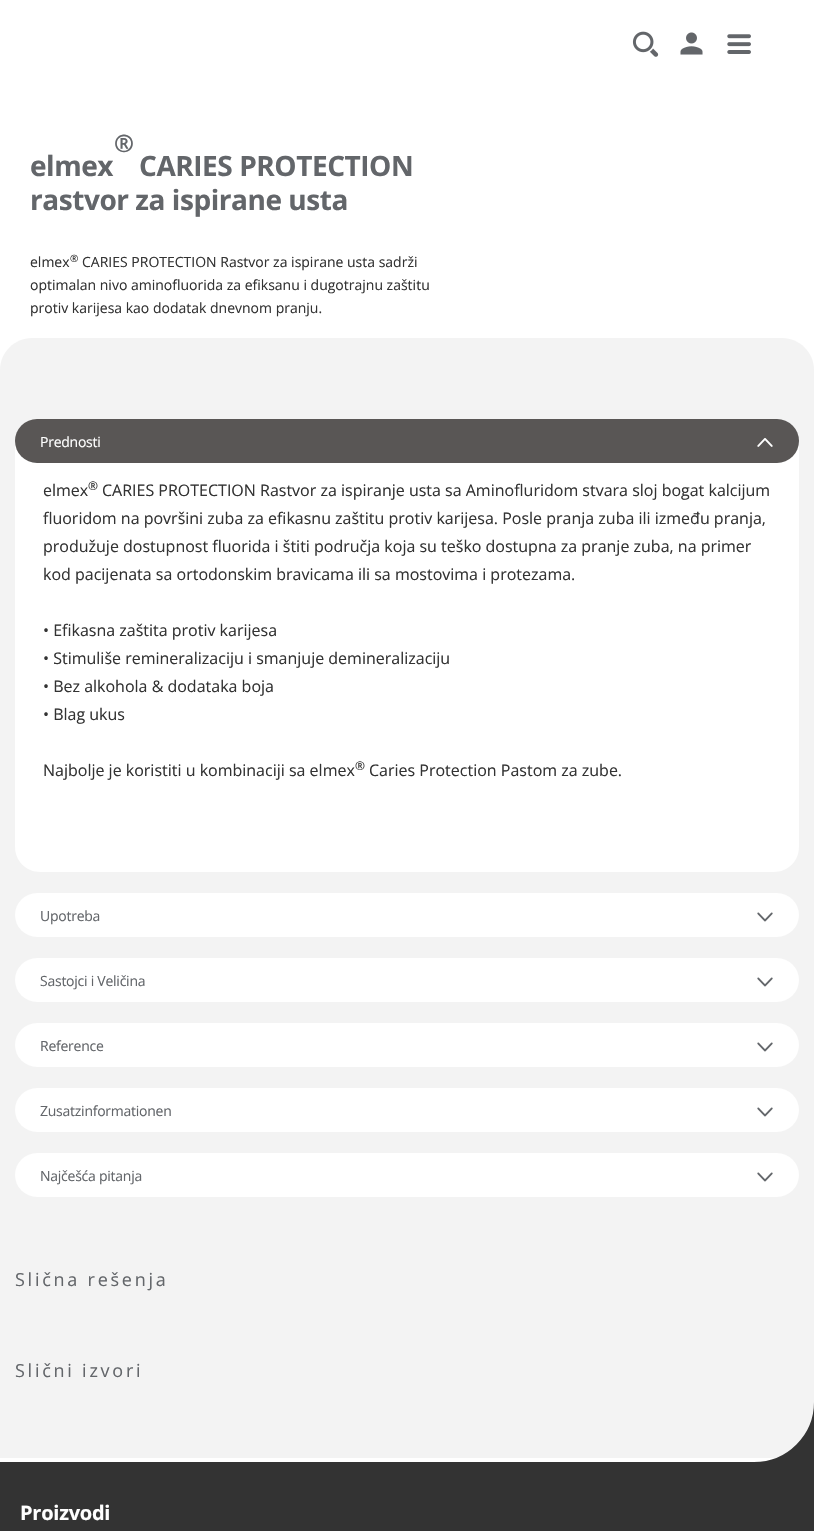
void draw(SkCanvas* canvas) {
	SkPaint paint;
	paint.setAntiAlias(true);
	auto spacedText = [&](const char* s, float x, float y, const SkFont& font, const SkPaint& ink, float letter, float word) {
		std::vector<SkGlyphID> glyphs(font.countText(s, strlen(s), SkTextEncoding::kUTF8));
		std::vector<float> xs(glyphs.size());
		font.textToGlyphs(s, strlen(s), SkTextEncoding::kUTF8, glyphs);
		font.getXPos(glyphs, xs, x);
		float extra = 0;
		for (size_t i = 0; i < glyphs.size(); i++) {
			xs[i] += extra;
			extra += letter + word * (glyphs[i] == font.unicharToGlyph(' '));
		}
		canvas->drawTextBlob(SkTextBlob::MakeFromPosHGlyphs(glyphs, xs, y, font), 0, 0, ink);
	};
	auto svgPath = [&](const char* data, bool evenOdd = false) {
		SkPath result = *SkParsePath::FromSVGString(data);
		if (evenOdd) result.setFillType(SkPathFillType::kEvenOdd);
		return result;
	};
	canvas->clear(0xffffffff);
	canvas->drawImageRect(SkImages::DeferredFromEncodedData(SkData::MakeFromFileName("img1.png")), SkRect::MakeXYWH(632, 31, 27, 26), SkSamplingOptions());
	canvas->drawImageRect(SkImages::DeferredFromEncodedData(SkData::MakeFromFileName("img2.png")), SkRect::MakeXYWH(680, 32, 23, 23), SkSamplingOptions());
	canvas->drawImageRect(SkImages::DeferredFromEncodedData(SkData::MakeFromFileName("img3.png")), SkRect::MakeXYWH(727, 34, 24, 20), SkSamplingOptions());
	SkFont f1(fontMgr->matchFamilyStyle("Open Sans", SkFontStyle::Bold()), 24);
	f1.setSubpixel(true);
	paint.setColor(0xff63666a);
	spacedText("®", 114, 152, f1, paint, -0.45, 0);
	SkFont f2(fontMgr->matchFamilyStyle("Open Sans", SkFontStyle::Bold()), 28);
	f2.setSubpixel(true);
	spacedText("elmex", 30, 176, f2, paint, -0.45, 0);
	spacedText("CARIES PROTECTION", 139, 176, f2, paint, -0.45, 0);
	spacedText("rastvor za ispirane usta", 30, 210, f2, paint, -0.45, 0);
	SkFont f3(fontMgr->matchFamilyStyle("Open Sans", SkFontStyle::Normal()), 14);
	f3.setSubpixel(true);
	paint.setColor(0xff333333);
	canvas->drawString("elmex", 30, 267, f3, paint);
	SkFont f4(fontMgr->matchFamilyStyle("Open Sans", SkFontStyle::Normal()), 10);
	f4.setSubpixel(true);
	canvas->drawString("®", 70, 262, f4, paint);
	canvas->drawString("CARIES PROTECTION Rastvor za ispirane usta sadrži", 82, 267, f3, paint);
	canvas->drawString("optimalan nivo aminofluorida za efiksanu i dugotrajnu zaštitu", 30, 290, f3, paint);
	canvas->drawString("protiv karijesa kao dodatak dnevnom pranju.", 30, 313, f3, paint);
	paint.setColor(0xfff3f3f3);
	canvas->drawPath(svgPath("M32 338H782C799.5 338 814 352.5 814 370V1426C814 1443.5 799.5 1458 782 1458H0V370C0 352.5 14.5 338 32 338Z"), paint);
	paint.setColor(0xffffffff);
	canvas->drawPath(svgPath("M15 443H799V847C799 861 788 872 774 872H40C26 872 15 861 15 847Z"), paint);
	paint.setColor(0xff595655);
	canvas->drawRoundRect(SkRect::MakeXYWH(15, 419, 784, 44), 22, 22, paint);
	paint.setColor(0xffffffff);
	spacedText("Prednosti", 40, 447, f3, paint, -0.25, 0);
	canvas->drawImageRect(SkImages::DeferredFromEncodedData(SkData::MakeFromFileName("img4.png")), SkRect::MakeXYWH(757, 438, 16, 9), SkSamplingOptions());
	SkFont f5(fontMgr->matchFamilyStyle("Open Sans", SkFontStyle::Normal()), 16);
	f5.setSubpixel(true);
	paint.setColor(0xff333333);
	canvas->drawString("elmex", 43, 496, f5, paint);
	SkFont f6(fontMgr->matchFamilyStyle("Open Sans", SkFontStyle(500, SkFontStyle::kNormal_Width, SkFontStyle::kUpright_Slant)), 12);
	f6.setSubpixel(true);
	canvas->drawString("®", 88, 490, f6, paint);
	canvas->drawString("CARIES PROTECTION Rastvor za ispiranje usta sa Aminofluridom stvara sloj bogat kalcijum", 102, 496, f5, paint);
	canvas->drawString("fluoridom na površini zuba za efikasnu zaštitu protiv karijesa. Posle pranja zuba ili između pranja,", 43, 524, f5, paint);
	canvas->drawString("produžuje dostupnost fluorida i štiti područja koja su teško dostupna za pranje zuba, na primer", 43, 552, f5, paint);
	canvas->drawString("kod pacijenata sa ortodonskim bravicama ili sa mostovima i protezama.", 43, 580, f5, paint);
	canvas->drawString("• Efikasna zaštita protiv karijesa", 43, 636, f5, paint);
	canvas->drawString("• Stimuliše remineralizaciju i smanjuje demineralizaciju", 43, 664, f5, paint);
	canvas->drawString("• Bez alkohola & dodataka boja", 43, 692, f5, paint);
	canvas->drawString("• Blag ukus", 43, 720, f5, paint);
	canvas->drawString("Najbolje je koristiti u kombinaciji sa elmex", 43, 776, f5, paint);
	canvas->drawString("®", 355, 770, f6, paint);
	canvas->drawString("Caries Protection Pastom za zube.", 369, 776, f5, paint);
	paint.setColor(0xffffffff);
	canvas->drawRoundRect(SkRect::MakeXYWH(15, 893, 784, 44), 22, 22, paint);
	paint.setColor(0xff63666a);
	spacedText("Upotreba", 40, 921, f3, paint, -0.25, 0);
	canvas->drawImageRect(SkImages::DeferredFromEncodedData(SkData::MakeFromFileName("img5.png")), SkRect::MakeXYWH(757, 912, 16, 10), SkSamplingOptions());
	paint.setColor(0xffffffff);
	canvas->drawRoundRect(SkRect::MakeXYWH(15, 958, 784, 44), 22, 22, paint);
	paint.setColor(0xff63666a);
	spacedText("Sastojci i Veličina", 40, 986, f3, paint, -0.25, 0);
	canvas->drawImageRect(SkImages::DeferredFromEncodedData(SkData::MakeFromFileName("img5.png")), SkRect::MakeXYWH(757, 977, 16, 10), SkSamplingOptions());
	paint.setColor(0xffffffff);
	canvas->drawRoundRect(SkRect::MakeXYWH(15, 1023, 784, 44), 22, 22, paint);
	paint.setColor(0xff63666a);
	spacedText("Reference", 40, 1051, f3, paint, -0.25, 0);
	canvas->drawImageRect(SkImages::DeferredFromEncodedData(SkData::MakeFromFileName("img5.png")), SkRect::MakeXYWH(757, 1042, 16, 10), SkSamplingOptions());
	paint.setColor(0xffffffff);
	canvas->drawRoundRect(SkRect::MakeXYWH(15, 1088, 784, 44), 22, 22, paint);
	paint.setColor(0xff63666a);
	spacedText("Zusatzinformationen", 40, 1116, f3, paint, -0.25, 0);
	canvas->drawImageRect(SkImages::DeferredFromEncodedData(SkData::MakeFromFileName("img5.png")), SkRect::MakeXYWH(757, 1107, 16, 10), SkSamplingOptions());
	paint.setColor(0xffffffff);
	canvas->drawRoundRect(SkRect::MakeXYWH(15, 1153, 784, 44), 22, 22, paint);
	paint.setColor(0xff63666a);
	spacedText("Najčešća pitanja", 40, 1181, f3, paint, -0.25, 0);
	canvas->drawImageRect(SkImages::DeferredFromEncodedData(SkData::MakeFromFileName("img5.png")), SkRect::MakeXYWH(757, 1172, 16, 10), SkSamplingOptions());
	SkFont f7(fontMgr->matchFamilyStyle("Open Sans", SkFontStyle::Normal()), 18);
	f7.setSubpixel(true);
	spacedText("Slična rešenja", 15, 1286, f7, paint, 2.75, 0);
	spacedText("Slični izvori", 15, 1377, f7, paint, 2.75, 0);
	paint.setColor(0xff333333);
	canvas->drawRect(SkRect::MakeXYWH(0, 1462, 814, 69), paint);
	SkFont f8(fontMgr->matchFamilyStyle("Open Sans", SkFontStyle::Bold()), 20);
	f8.setSubpixel(true);
	paint.setColor(0xffffffff);
	spacedText("Proizvodi", 20, 1520, f8, paint, -0.25, 0);
	canvas->save();
	canvas->clipRect(SkRect::MakeXYWH(754, 1402, 60, 60));
	paint.setStroke(true);
	paint.setStrokeWidth(300);
	paint.setColor(0xff333333);
	canvas->drawCircle(754, 1402, 210, paint);
	canvas->restore();
}
